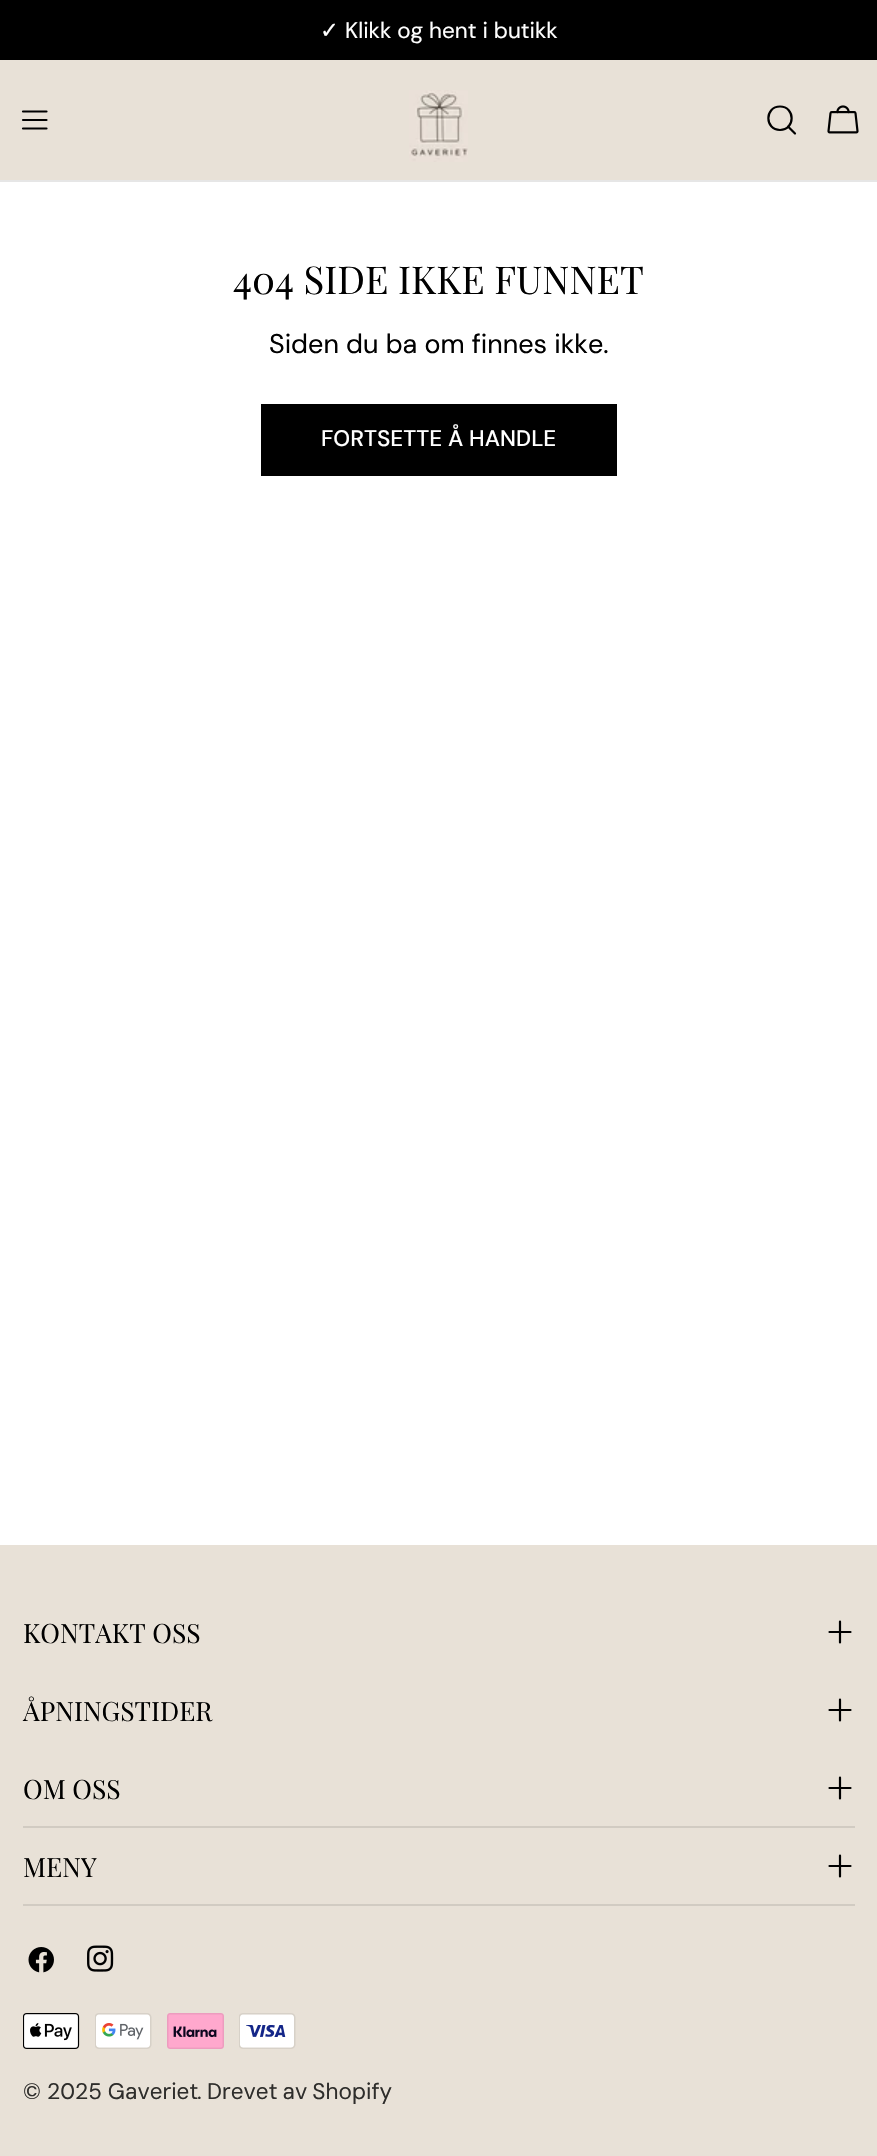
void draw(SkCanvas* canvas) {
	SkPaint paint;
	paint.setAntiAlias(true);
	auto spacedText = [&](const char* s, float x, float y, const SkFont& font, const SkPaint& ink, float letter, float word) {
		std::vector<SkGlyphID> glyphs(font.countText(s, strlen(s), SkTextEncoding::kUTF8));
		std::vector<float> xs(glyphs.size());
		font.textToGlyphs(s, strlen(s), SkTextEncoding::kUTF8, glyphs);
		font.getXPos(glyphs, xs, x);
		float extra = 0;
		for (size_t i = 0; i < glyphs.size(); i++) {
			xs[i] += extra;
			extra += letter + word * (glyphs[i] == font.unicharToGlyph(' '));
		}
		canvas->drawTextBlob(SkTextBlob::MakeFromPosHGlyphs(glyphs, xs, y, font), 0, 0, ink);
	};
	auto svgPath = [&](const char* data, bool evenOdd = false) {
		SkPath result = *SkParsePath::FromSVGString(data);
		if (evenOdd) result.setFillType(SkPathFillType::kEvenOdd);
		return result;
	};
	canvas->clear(0xffffffff);
	paint.setColor(0xff000000);
	canvas->drawRect(SkRect::MakeXYWH(0, 0, 877, 60), paint);
	SkFont f1(fontMgr->matchFamilyStyle("DejaVu Sans", SkFontStyle::Normal()), 22.5);
	f1.setSubpixel(true);
	paint.setColor(0xffffffff);
	canvas->drawString("✓", 320, 38, f1, paint);
	SkFont f2(fontMgr->matchFamilyStyle("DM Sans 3", SkFontStyle::Normal()), 22.5);
	f2.setSubpixel(true);
	canvas->drawString("Klikk og hent i butikk", 345, 38, f2, paint);
	paint.setColor(0xffe6e6e6);
	canvas->drawRect(SkRect::MakeXYWH(0, 180, 877, 2), paint);
	paint.setColor(0xffe8e1d7);
	canvas->drawRect(SkRect::MakeXYWH(0, 60, 877, 120), paint);
	paint.setStroke(true);
	paint.setStrokeWidth(2.2);
	paint.setStrokeCap(SkPaint::kRound_Cap);
	paint.setStrokeJoin(SkPaint::kRound_Join);
	paint.setColor(0xff000000);
	canvas->drawPath(svgPath("M23 120H46.5M23 111.5H46.5M23 128.5H46.5"), paint);
	canvas->drawImageRect(SkImages::DeferredFromEncodedData(SkData::MakeFromFileName("img1.png")), SkRect::MakeXYWH(409, 90, 59, 72), SkSamplingOptions());
	canvas->drawPath(svgPath("M780 130C795.5 130 795.5 106.5 780 106.5C764.5 106.5 764.5 130 780 130ZM788 126.5L795 133.5"), paint);
	canvas->drawImageRect(SkImages::DeferredFromEncodedData(SkData::MakeFromFileName("img2.png")), SkRect::MakeXYWH(827, 105, 32, 29), SkSamplingOptions());
	SkFont f3(fontMgr->matchFamilyStyle("Playfair Display", SkFontStyle::Normal()), 38.4);
	f3.setSubpixel(true);
	paint.setStroke(false);
	canvas->drawString("404 SIDE IKKE FUNNET", 233, 294, f3, paint);
	SkFont f4(fontMgr->matchFamilyStyle("DM Sans", SkFontStyle::Normal()), 27);
	f4.setSubpixel(true);
	canvas->drawString("Siden du ba om finnes ikke.", 269, 353, f4, paint);
	canvas->drawRect(SkRect::MakeXYWH(261, 404, 356, 72), paint);
	SkFont f5(fontMgr->matchFamilyStyle("DM Sans", SkFontStyle(500, SkFontStyle::kNormal_Width, SkFontStyle::kUpright_Slant)), 22.5);
	f5.setSubpixel(true);
	paint.setColor(0xffffffff);
	canvas->drawString("FORTSETTE Å HANDLE", 321, 446, f5, paint);
	paint.setColor(0xffe8e1d7);
	canvas->drawRect(SkRect::MakeXYWH(0, 1545, 877, 611), paint);
	SkFont f6(fontMgr->matchFamilyStyle("Playfair Display", SkFontStyle::Normal()), 26.5);
	f6.setSubpixel(true);
	paint.setColor(0xff000000);
	canvas->drawString("KONTAKT OSS", 23, 1643, f6, paint);
	paint.setStroke(true);
	canvas->drawPath(svgPath("M829.5 1632H850.5M840 1621.5V1642.5"), paint);
	paint.setStroke(false);
	canvas->drawString("ÅPNINGSTIDER", 23, 1721, f6, paint);
	paint.setStroke(true);
	canvas->drawPath(svgPath("M829.5 1710H850.5M840 1699.5V1720.5"), paint);
	paint.setStroke(false);
	canvas->drawString("OM OSS", 23, 1799, f6, paint);
	paint.setStroke(true);
	canvas->drawPath(svgPath("M829.5 1788H850.5M840 1777.5V1798.5"), paint);
	paint.setStroke(false);
	paint.setColor(0xffd1cbc2);
	canvas->drawRect(SkRect::MakeXYWH(23, 1826, 832, 2), paint);
	paint.setColor(0xff000000);
	canvas->drawString("MENY", 23, 1877, f6, paint);
	paint.setStroke(true);
	canvas->drawPath(svgPath("M829.5 1866H850.5M840 1855.5V1876.5"), paint);
	paint.setStroke(false);
	paint.setColor(0xffd1cbc2);
	canvas->drawRect(SkRect::MakeXYWH(23, 1904, 832, 2), paint);
	canvas->drawImageRect(SkImages::DeferredFromEncodedData(SkData::MakeFromFileName("img3.png")), SkRect::MakeXYWH(28, 1947, 26, 26), SkSamplingOptions());
	canvas->drawImageRect(SkImages::DeferredFromEncodedData(SkData::MakeFromFileName("img4.png")), SkRect::MakeXYWH(87, 1945, 27, 27), SkSamplingOptions());
	canvas->drawImageRect(SkImages::DeferredFromEncodedData(SkData::MakeFromFileName("img5.png")), SkRect::MakeXYWH(23, 2013, 57, 36), SkSamplingOptions());
	canvas->drawImageRect(SkImages::DeferredFromEncodedData(SkData::MakeFromFileName("img6.png")), SkRect::MakeXYWH(95, 2013, 57, 36), SkSamplingOptions());
	canvas->drawImageRect(SkImages::DeferredFromEncodedData(SkData::MakeFromFileName("img7.png")), SkRect::MakeXYWH(167, 2013, 57, 36), SkSamplingOptions());
	canvas->drawImageRect(SkImages::DeferredFromEncodedData(SkData::MakeFromFileName("img8.png")), SkRect::MakeXYWH(239, 2013, 57, 36), SkSamplingOptions());
	SkFont f7(fontMgr->matchFamilyStyle("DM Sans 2", SkFontStyle::Normal()), 22.5);
	f7.setSubpixel(true);
	paint.setColor(0xff2e2d2b);
	canvas->drawString("© 2025 Gaveriet", 23, 2099, f7, paint);
	canvas->drawString(".", 197, 2099, f7, paint);
	spacedText("Drevet av Shopify", 207, 2099, f7, paint, 0, -1);
}
